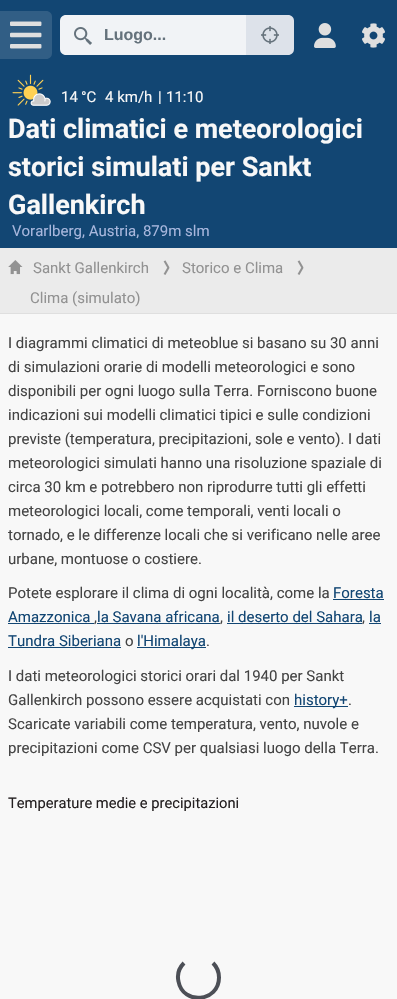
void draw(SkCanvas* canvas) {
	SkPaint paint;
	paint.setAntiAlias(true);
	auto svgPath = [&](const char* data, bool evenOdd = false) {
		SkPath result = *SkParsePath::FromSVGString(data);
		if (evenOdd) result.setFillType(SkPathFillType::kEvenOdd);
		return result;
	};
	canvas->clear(0xfff8f8f8);
	paint.setColor(0xff124673);
	canvas->drawRect(SkRect::MakeXYWH(0, 0, 397, 248), paint);
	paint.setColor(0xff315e85);
	canvas->drawPath(svgPath("M0 11H46C49.5 11 52 13.5 52 17V53C52 56.5 49.5 59 46 59H0Z"), paint);
	canvas->drawImageRect(SkImages::DeferredFromEncodedData(SkData::MakeFromFileName("img1.png")), SkRect::MakeXYWH(10, 21, 32, 28), SkSamplingOptions());
	paint.setColor(0xfff1f3f6);
	canvas->drawPath(svgPath("M66 15H246V55H66C62.5 55 60 52.5 60 49V21C60 17.5 62.5 15 66 15Z"), paint);
	canvas->drawImageRect(SkImages::DeferredFromEncodedData(SkData::MakeFromFileName("img2.png")), SkRect::MakeXYWH(74, 27, 18, 18), SkSamplingOptions());
	SkFont f1(fontMgr->matchFamilyStyle("Liberation Sans", SkFontStyle::Bold()), 16);
	f1.setSubpixel(true);
	paint.setColor(0xff65727c);
	canvas->drawString("Luogo...", 104, 40, f1, paint);
	paint.setColor(0xffdde2ea);
	canvas->drawPath(svgPath("M246 15H288C291.5 15 294 17.5 294 21V49C294 52.5 291.5 55 288 55H246Z"), paint);
	canvas->drawImageRect(SkImages::DeferredFromEncodedData(SkData::MakeFromFileName("img3.png")), SkRect::MakeXYWH(261, 26, 18, 18), SkSamplingOptions());
	canvas->drawImageRect(SkImages::DeferredFromEncodedData(SkData::MakeFromFileName("img4.png")), SkRect::MakeXYWH(314, 23, 22, 25), SkSamplingOptions());
	canvas->drawImageRect(SkImages::DeferredFromEncodedData(SkData::MakeFromFileName("img5.png")), SkRect::MakeXYWH(362, 23, 23, 25), SkSamplingOptions());
	canvas->drawImageRect(SkImages::DeferredFromEncodedData(SkData::MakeFromFileName("img6.png")), SkRect::MakeXYWH(12, 74, 39, 32), SkSamplingOptions());
	SkFont f2(fontMgr->matchFamilyStyle("Roboto", SkFontStyle::Normal()), 15);
	f2.setSubpixel(true);
	paint.setColor(0xfff8f8f8);
	canvas->drawString("14 °C", 61, 102, f2, paint);
	canvas->drawString("4 km/h", 105, 102, f2, paint);
	canvas->drawString("|", 158, 102, f2, paint);
	canvas->drawString("11:10", 166, 102, f2, paint);
	SkFont f3(fontMgr->matchFamilyStyle("Roboto", SkFontStyle::Bold()), 27);
	f3.setSubpixel(true);
	canvas->drawString("Dati climatici e meteorologici", 8, 138, f3, paint);
	canvas->drawString("storici simulati per Sankt", 8, 176, f3, paint);
	canvas->drawString("Gallenkirch", 8, 214, f3, paint);
	paint.setColor(0xffa8b7dd);
	canvas->drawString("Vorarlberg, Austria, 879m slm", 12, 236, f2, paint);
	paint.setColor(0xffebebeb);
	canvas->drawRect(SkRect::MakeXYWH(0, 248, 397, 65), paint);
	paint.setColor(0xffdfdfdf);
	canvas->drawRect(SkRect::MakeXYWH(0, 313, 397, 1), paint);
	canvas->drawImageRect(SkImages::DeferredFromEncodedData(SkData::MakeFromFileName("img7.png")), SkRect::MakeXYWH(8, 260, 15, 15), SkSamplingOptions());
	paint.setColor(0xff929292);
	canvas->drawString("Sankt Gallenkirch", 33, 273, f2, paint);
	canvas->drawImageRect(SkImages::DeferredFromEncodedData(SkData::MakeFromFileName("img8.png")), SkRect::MakeXYWH(163, 260, 7, 15), SkSamplingOptions());
	canvas->drawString("Storico e Clima", 182, 273, f2, paint);
	canvas->drawImageRect(SkImages::DeferredFromEncodedData(SkData::MakeFromFileName("img8.png")), SkRect::MakeXYWH(297, 260, 7, 15), SkSamplingOptions());
	canvas->drawString("Clima (simulato)", 30, 303, f2, paint);
	paint.setColor(0xff444444);
	canvas->drawString("I diagrammi climatici di meteoblue si basano su 30 anni", 8, 348, f2, paint);
	canvas->drawString("di simulazioni orarie di modelli meteorologici e sono", 8, 372, f2, paint);
	canvas->drawString("disponibili per ogni luogo sulla Terra. Forniscono buone", 8, 396, f2, paint);
	canvas->drawString("indicazioni sui modelli climatici tipici e sulle condizioni", 8, 420, f2, paint);
	canvas->drawString("previste (temperatura, precipitazioni, sole e vento). I dati", 8, 444, f2, paint);
	canvas->drawString("meteorologici simulati hanno una risoluzione spaziale di", 8, 468, f2, paint);
	canvas->drawString("circa 30 km e potrebbero non riprodurre tutti gli effetti", 8, 492, f2, paint);
	canvas->drawString("meteorologici locali, come temporali, venti locali o", 8, 516, f2, paint);
	canvas->drawString("tornado, e le differenze locali che si verificano nelle aree", 8, 540, f2, paint);
	canvas->drawString("urbane, montuose o costiere.", 8, 564, f2, paint);
	canvas->drawString("Potete esplorare il clima di ogni località, come la", 8, 598, f2, paint);
	paint.setColor(0xff124673);
	canvas->drawString("Foresta", 333, 598, f2, paint);
	canvas->drawRect(SkRect::MakeXYWH(333, 599, 51, 1), paint);
	canvas->drawString("Amazzonica", 8, 622, f2, paint);
	canvas->drawRect(SkRect::MakeXYWH(8, 623, 86, 1), paint);
	paint.setColor(0xff444444);
	canvas->drawString(",", 94, 622, f2, paint);
	paint.setColor(0xff124673);
	canvas->drawString("la Savana africana", 97, 622, f2, paint);
	canvas->drawRect(SkRect::MakeXYWH(97, 623, 123, 1), paint);
	paint.setColor(0xff444444);
	canvas->drawString(",", 220, 622, f2, paint);
	paint.setColor(0xff124673);
	canvas->drawString("il deserto del Sahara", 227, 622, f2, paint);
	canvas->drawRect(SkRect::MakeXYWH(227, 623, 135, 1), paint);
	paint.setColor(0xff444444);
	canvas->drawString(",", 362, 622, f2, paint);
	paint.setColor(0xff124673);
	canvas->drawString("la", 369, 622, f2, paint);
	canvas->drawRect(SkRect::MakeXYWH(369, 623, 12, 1), paint);
	canvas->drawString("Tundra Siberiana", 8, 646, f2, paint);
	canvas->drawRect(SkRect::MakeXYWH(8, 647, 113, 1), paint);
	paint.setColor(0xff444444);
	canvas->drawString("o", 125, 646, f2, paint);
	paint.setColor(0xff124673);
	canvas->drawRect(SkRect::MakeXYWH(137, 647, 69, 1), paint);
	canvas->drawString("l'Himalaya", 137, 646, f2, paint);
	paint.setColor(0xff444444);
	canvas->drawString(".", 206, 646, f2, paint);
	canvas->drawString("I dati meteorologici storici orari dal 1940 per Sankt", 8, 681, f2, paint);
	canvas->drawString("Gallenkirch possono essere acquistati con", 8, 705, f2, paint);
	paint.setColor(0xff124673);
	canvas->drawRect(SkRect::MakeXYWH(294, 706, 54, 1), paint);
	canvas->drawString("history+", 294, 705, f2, paint);
	paint.setColor(0xff444444);
	canvas->drawString(".", 348, 705, f2, paint);
	canvas->drawString("Scaricate variabili come temperatura, vento, nuvole e", 8, 729, f2, paint);
	canvas->drawString("precipitazioni come CSV per qualsiasi luogo della Terra.", 8, 753, f2, paint);
	SkFont f4(fontMgr->matchFamilyStyle("Roboto", SkFontStyle::Normal()), 14.7);
	f4.setSubpixel(true);
	paint.setColor(0xff231f20);
	canvas->drawString("Temperature medie e precipitazioni", 8, 808, f4, paint);
	paint.setStroke(true);
	paint.setStrokeWidth(4);
	paint.setColor(0xff4c4f56);
	canvas->drawPath(svgPath("M213 963C217 967 219 972 219 977.5C219 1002 183 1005.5 178.5 981.5C177 975 179 968 184 963"), paint);
}
